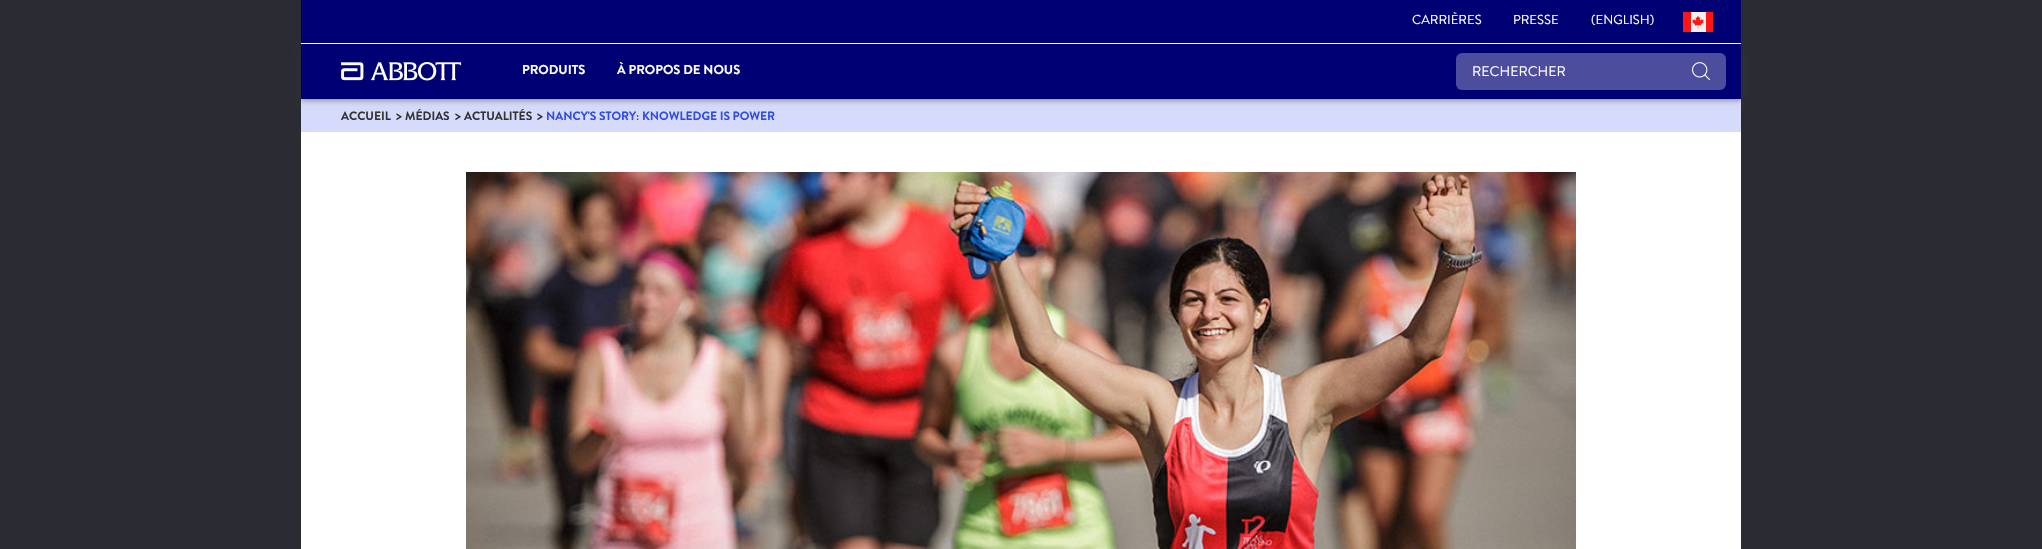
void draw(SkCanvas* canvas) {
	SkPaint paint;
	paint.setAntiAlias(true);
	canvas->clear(0xff2a2b33);
	paint.setColor(0xffd6dbfc);
	canvas->drawRect(SkRect::MakeXYWH(301, 99, 1440, 33), paint);
	paint.setColor(0x478d8d94);
	paint.setMaskFilter(SkMaskFilter::MakeBlur(kNormal_SkBlurStyle, 4));
	canvas->drawRect(SkRect::MakeXYWH(303, 50, 1436, 51), paint);
	paint.setMaskFilter(nullptr);
	paint.setColor(0x3d000000);
	paint.setMaskFilter(SkMaskFilter::MakeBlur(kNormal_SkBlurStyle, 2));
	canvas->drawRect(SkRect::MakeXYWH(301, 46, 1440, 55), paint);
	paint.setMaskFilter(nullptr);
	paint.setColor(0xff000075);
	canvas->drawRect(SkRect::MakeXYWH(301, 0, 1440, 43), paint);
	paint.setColor(0xffffffff);
	canvas->drawRect(SkRect::MakeXYWH(301, 43, 1440, 1), paint);
	SkFont f1(fontMgr->matchFamilyStyle("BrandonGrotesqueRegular", SkFontStyle::Normal()), 13);
	f1.setSubpixel(true);
	canvas->drawString("CARRIÈRES", 1412, 24, f1, paint);
	canvas->drawString("PRESSE", 1513, 24, f1, paint);
	canvas->drawString("(ENGLISH)", 1591, 24, f1, paint);
	canvas->drawImageRect(SkImages::DeferredFromEncodedData(SkData::MakeFromFileName("img1.png")), SkRect::MakeXYWH(1683, 12, 30, 20), SkSamplingOptions());
	paint.setColor(0xff000075);
	canvas->drawRect(SkRect::MakeXYWH(301, 44, 1440, 55), paint);
	canvas->drawImageRect(SkImages::DeferredFromEncodedData(SkData::MakeFromFileName("img2.png")), SkRect::MakeXYWH(341, 62, 121, 19), SkSamplingOptions());
	SkFont f2(fontMgr->matchFamilyStyle("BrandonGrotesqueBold", SkFontStyle::Bold()), 13);
	f2.setSubpixel(true);
	paint.setColor(0xffffffff);
	canvas->drawString("PRODUITS", 522, 74, f2, paint);
	canvas->drawString("À PROPOS DE NOUS", 617, 74, f2, paint);
	paint.setColor(0xff4d4d9e);
	canvas->drawRoundRect(SkRect::MakeXYWH(1456, 53, 270, 37), 6, 6, paint);
	SkFont f3(fontMgr->matchFamilyStyle("BrandonGrotesqueRegular", SkFontStyle::Normal()), 14);
	f3.setSubpixel(true);
	paint.setColor(0xffffffff);
	canvas->drawString("RECHERCHER", 1472, 76, f3, paint);
	canvas->drawImageRect(SkImages::DeferredFromEncodedData(SkData::MakeFromFileName("img3.png")), SkRect::MakeXYWH(1692, 62, 18, 19), SkSamplingOptions());
	canvas->drawRect(SkRect::MakeXYWH(301, 132, 1440, 417), paint);
	SkFont f4(fontMgr->matchFamilyStyle("BrandonGrotesqueBold", SkFontStyle::Bold()), 12);
	f4.setSubpixel(true);
	paint.setColor(0xff333333);
	canvas->drawString("ACCUEIL", 341, 120, f4, paint);
	SkFont f5(fontMgr->matchFamilyStyle("BrandonGrotesqueBold", SkFontStyle::Bold()), 14);
	f5.setSubpixel(true);
	canvas->drawString(">", 396, 120, f5, paint);
	canvas->drawString("MÉDIAS", 405, 120, f4, paint);
	canvas->drawString(">", 455, 120, f5, paint);
	canvas->drawString("ACTUALITÉS", 464, 120, f4, paint);
	canvas->drawString(">", 537, 120, f5, paint);
	paint.setColor(0xff2e4aed);
	canvas->drawString("NANCY'S STORY: KNOWLEDGE IS POWER", 546, 120, f4, paint);
	canvas->drawImageRect(SkImages::DeferredFromEncodedData(SkData::MakeFromFileName("img4.png")), SkRect::MakeXYWH(466, 172, 1110, 377), SkSamplingOptions());
}
